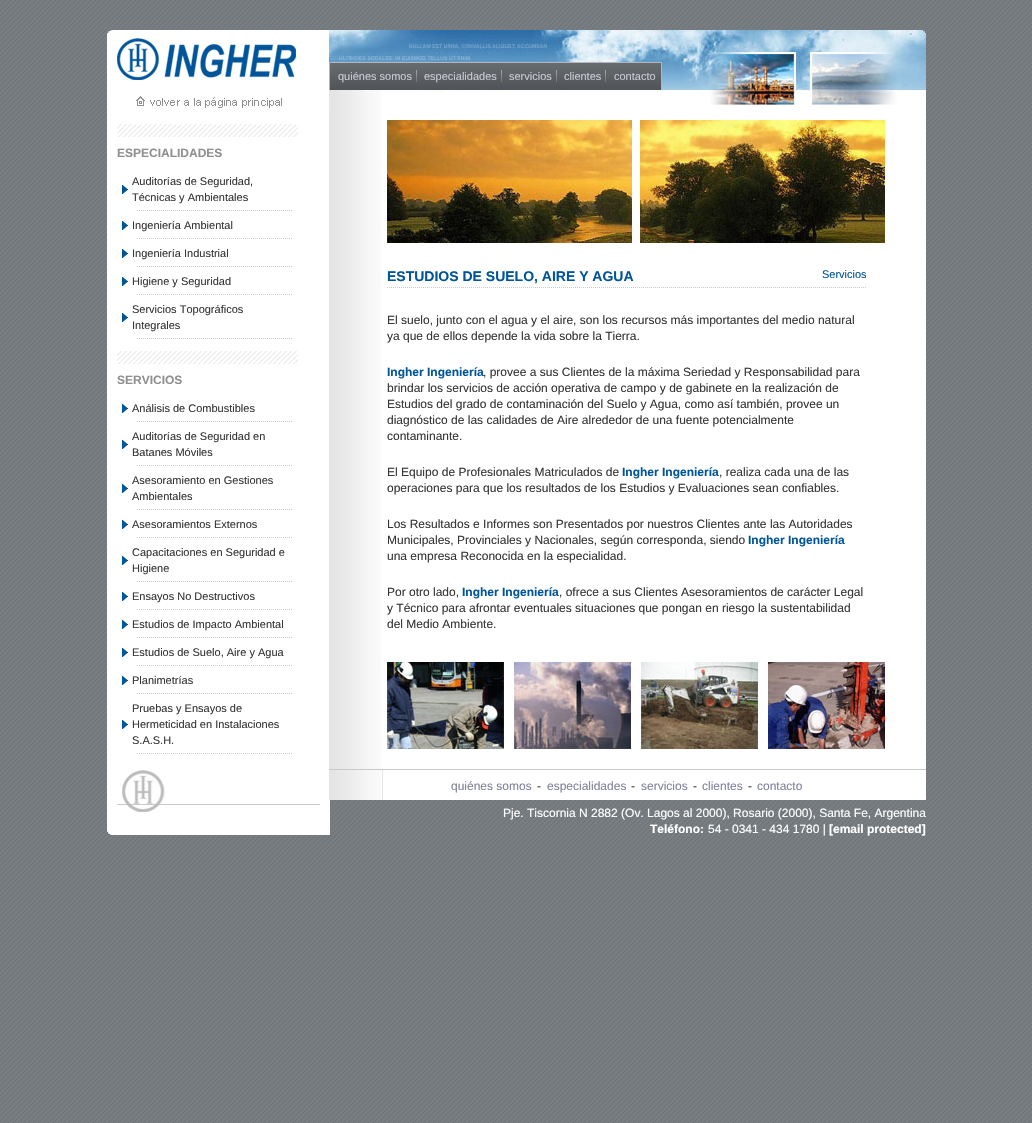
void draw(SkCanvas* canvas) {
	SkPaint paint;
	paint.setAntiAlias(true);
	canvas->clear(0xffffffff);
	canvas->drawImageRect(SkImages::DeferredFromEncodedData(SkData::MakeFromFileName("img1.png")), SkRect::MakeXYWH(0, 0, 1032, 1123), SkSamplingOptions());
	paint.setColor(0xffffffff);
	canvas->drawRect(SkRect::MakeXYWH(107, 30, 819, 739), paint);
	canvas->drawImageRect(SkImages::DeferredFromEncodedData(SkData::MakeFromFileName("img2.png")), SkRect::MakeXYWH(329, 107, 52, 662), SkSamplingOptions());
	canvas->drawImageRect(SkImages::DeferredFromEncodedData(SkData::MakeFromFileName("img3.png")), SkRect::MakeXYWH(107, 30, 6, 4), SkSamplingOptions());
	canvas->drawImageRect(SkImages::DeferredFromEncodedData(SkData::MakeFromFileName("img4.png")), SkRect::MakeXYWH(117, 38, 179, 42), SkSamplingOptions());
	canvas->drawImageRect(SkImages::DeferredFromEncodedData(SkData::MakeFromFileName("img5.png")), SkRect::MakeXYWH(136, 96, 146, 12), SkSamplingOptions());
	canvas->drawImageRect(SkImages::DeferredFromEncodedData(SkData::MakeFromFileName("img6.png")), SkRect::MakeXYWH(117, 124, 181, 13), SkSamplingOptions());
	SkFont f1(fontMgr->matchFamilyStyle("Liberation Sans", SkFontStyle::Bold()), 12);
	f1.setSubpixel(true);
	paint.setColor(0xff909090);
	canvas->drawString("ESPECIALIDADES", 117, 157, f1, paint);
	canvas->drawImageRect(SkImages::DeferredFromEncodedData(SkData::MakeFromFileName("img7.png")), SkRect::MakeXYWH(126, 210, 166, 1), SkSamplingOptions());
	canvas->drawImageRect(SkImages::DeferredFromEncodedData(SkData::MakeFromFileName("img8.png")), SkRect::MakeXYWH(122, 185, 6, 9), SkSamplingOptions());
	SkFont f2(fontMgr->matchFamilyStyle("Liberation Sans", SkFontStyle::Normal()), 11);
	f2.setSubpixel(true);
	paint.setColor(0xff363636);
	canvas->drawString("Auditorías de Seguridad,", 132, 185, f2, paint);
	canvas->drawString("Técnicas y Ambientales", 132, 201, f2, paint);
	canvas->drawImageRect(SkImages::DeferredFromEncodedData(SkData::MakeFromFileName("img7.png")), SkRect::MakeXYWH(126, 238, 166, 1), SkSamplingOptions());
	canvas->drawImageRect(SkImages::DeferredFromEncodedData(SkData::MakeFromFileName("img8.png")), SkRect::MakeXYWH(122, 221, 6, 9), SkSamplingOptions());
	canvas->drawString("Ingeniería Ambiental", 132, 229, f2, paint);
	canvas->drawImageRect(SkImages::DeferredFromEncodedData(SkData::MakeFromFileName("img7.png")), SkRect::MakeXYWH(126, 266, 166, 1), SkSamplingOptions());
	canvas->drawImageRect(SkImages::DeferredFromEncodedData(SkData::MakeFromFileName("img8.png")), SkRect::MakeXYWH(122, 249, 6, 9), SkSamplingOptions());
	canvas->drawString("Ingeniería Industrial", 132, 257, f2, paint);
	canvas->drawImageRect(SkImages::DeferredFromEncodedData(SkData::MakeFromFileName("img7.png")), SkRect::MakeXYWH(126, 294, 166, 1), SkSamplingOptions());
	canvas->drawImageRect(SkImages::DeferredFromEncodedData(SkData::MakeFromFileName("img8.png")), SkRect::MakeXYWH(122, 277, 6, 9), SkSamplingOptions());
	canvas->drawString("Higiene y Seguridad", 132, 285, f2, paint);
	canvas->drawImageRect(SkImages::DeferredFromEncodedData(SkData::MakeFromFileName("img7.png")), SkRect::MakeXYWH(126, 338, 166, 1), SkSamplingOptions());
	canvas->drawImageRect(SkImages::DeferredFromEncodedData(SkData::MakeFromFileName("img8.png")), SkRect::MakeXYWH(122, 313, 6, 9), SkSamplingOptions());
	canvas->drawString("Servicios Topográficos", 132, 313, f2, paint);
	canvas->drawString("Integrales", 132, 329, f2, paint);
	canvas->drawImageRect(SkImages::DeferredFromEncodedData(SkData::MakeFromFileName("img6.png")), SkRect::MakeXYWH(117, 351, 181, 13), SkSamplingOptions());
	paint.setColor(0xff909090);
	canvas->drawString("SERVICIOS", 117, 384, f1, paint);
	canvas->drawImageRect(SkImages::DeferredFromEncodedData(SkData::MakeFromFileName("img7.png")), SkRect::MakeXYWH(126, 421, 166, 1), SkSamplingOptions());
	canvas->drawImageRect(SkImages::DeferredFromEncodedData(SkData::MakeFromFileName("img8.png")), SkRect::MakeXYWH(122, 404, 6, 9), SkSamplingOptions());
	paint.setColor(0xff363636);
	canvas->drawString("Análisis de Combustibles", 132, 412, f2, paint);
	canvas->drawImageRect(SkImages::DeferredFromEncodedData(SkData::MakeFromFileName("img7.png")), SkRect::MakeXYWH(126, 465, 166, 1), SkSamplingOptions());
	canvas->drawImageRect(SkImages::DeferredFromEncodedData(SkData::MakeFromFileName("img8.png")), SkRect::MakeXYWH(122, 440, 6, 9), SkSamplingOptions());
	canvas->drawString("Auditorías de Seguridad en", 132, 440, f2, paint);
	canvas->drawString("Batanes Móviles", 132, 456, f2, paint);
	canvas->drawImageRect(SkImages::DeferredFromEncodedData(SkData::MakeFromFileName("img7.png")), SkRect::MakeXYWH(126, 509, 166, 1), SkSamplingOptions());
	canvas->drawImageRect(SkImages::DeferredFromEncodedData(SkData::MakeFromFileName("img8.png")), SkRect::MakeXYWH(122, 484, 6, 9), SkSamplingOptions());
	canvas->drawString("Asesoramiento en Gestiones", 132, 484, f2, paint);
	canvas->drawString("Ambientales", 132, 500, f2, paint);
	canvas->drawImageRect(SkImages::DeferredFromEncodedData(SkData::MakeFromFileName("img7.png")), SkRect::MakeXYWH(126, 537, 166, 1), SkSamplingOptions());
	canvas->drawImageRect(SkImages::DeferredFromEncodedData(SkData::MakeFromFileName("img8.png")), SkRect::MakeXYWH(122, 520, 6, 9), SkSamplingOptions());
	canvas->drawString("Asesoramientos Externos", 132, 528, f2, paint);
	canvas->drawImageRect(SkImages::DeferredFromEncodedData(SkData::MakeFromFileName("img7.png")), SkRect::MakeXYWH(126, 581, 166, 1), SkSamplingOptions());
	canvas->drawImageRect(SkImages::DeferredFromEncodedData(SkData::MakeFromFileName("img8.png")), SkRect::MakeXYWH(122, 556, 6, 9), SkSamplingOptions());
	canvas->drawString("Capacitaciones en Seguridad e", 132, 556, f2, paint);
	canvas->drawString("Higiene", 132, 572, f2, paint);
	canvas->drawImageRect(SkImages::DeferredFromEncodedData(SkData::MakeFromFileName("img7.png")), SkRect::MakeXYWH(126, 609, 166, 1), SkSamplingOptions());
	canvas->drawImageRect(SkImages::DeferredFromEncodedData(SkData::MakeFromFileName("img8.png")), SkRect::MakeXYWH(122, 592, 6, 9), SkSamplingOptions());
	canvas->drawString("Ensayos No Destructivos", 132, 600, f2, paint);
	canvas->drawImageRect(SkImages::DeferredFromEncodedData(SkData::MakeFromFileName("img7.png")), SkRect::MakeXYWH(126, 637, 166, 1), SkSamplingOptions());
	canvas->drawImageRect(SkImages::DeferredFromEncodedData(SkData::MakeFromFileName("img8.png")), SkRect::MakeXYWH(122, 620, 6, 9), SkSamplingOptions());
	canvas->drawString("Estudios de Impacto Ambiental", 132, 628, f2, paint);
	canvas->drawImageRect(SkImages::DeferredFromEncodedData(SkData::MakeFromFileName("img7.png")), SkRect::MakeXYWH(126, 665, 166, 1), SkSamplingOptions());
	canvas->drawImageRect(SkImages::DeferredFromEncodedData(SkData::MakeFromFileName("img8.png")), SkRect::MakeXYWH(122, 648, 6, 9), SkSamplingOptions());
	canvas->drawString("Estudios de Suelo, Aire y Agua", 132, 656, f2, paint);
	canvas->drawImageRect(SkImages::DeferredFromEncodedData(SkData::MakeFromFileName("img7.png")), SkRect::MakeXYWH(126, 693, 166, 1), SkSamplingOptions());
	canvas->drawImageRect(SkImages::DeferredFromEncodedData(SkData::MakeFromFileName("img8.png")), SkRect::MakeXYWH(122, 676, 6, 9), SkSamplingOptions());
	canvas->drawString("Planimetrías", 132, 684, f2, paint);
	canvas->drawImageRect(SkImages::DeferredFromEncodedData(SkData::MakeFromFileName("img7.png")), SkRect::MakeXYWH(126, 753, 166, 1), SkSamplingOptions());
	canvas->drawImageRect(SkImages::DeferredFromEncodedData(SkData::MakeFromFileName("img8.png")), SkRect::MakeXYWH(122, 720, 6, 9), SkSamplingOptions());
	canvas->drawString("Pruebas y Ensayos de", 132, 712, f2, paint);
	canvas->drawString("Hermeticidad en Instalaciones", 132, 728, f2, paint);
	canvas->drawString("S.A.S.H.", 132, 744, f2, paint);
	canvas->drawImageRect(SkImages::DeferredFromEncodedData(SkData::MakeFromFileName("img9.png")), SkRect::MakeXYWH(329, 30, 597, 77), SkSamplingOptions());
	canvas->drawImageRect(SkImages::DeferredFromEncodedData(SkData::MakeFromFileName("img10.png")), SkRect::MakeXYWH(330, 63, 331, 27), SkSamplingOptions());
	paint.setColor(0xffb3b6bf);
	canvas->drawRect(SkRect::MakeXYWH(329, 62, 333, 1), paint);
	canvas->drawRect(SkRect::MakeXYWH(661, 62, 1, 28), paint);
	canvas->drawRect(SkRect::MakeXYWH(329, 62, 1, 28), paint);
	paint.setColor(0xffc7cad3);
	canvas->drawString("quiénes somos", 338, 80, f2, paint);
	canvas->drawImageRect(SkImages::DeferredFromEncodedData(SkData::MakeFromFileName("img11.png")), SkRect::MakeXYWH(416, 70, 1, 12), SkSamplingOptions());
	canvas->drawString("especialidades", 424, 80, f2, paint);
	canvas->drawImageRect(SkImages::DeferredFromEncodedData(SkData::MakeFromFileName("img11.png")), SkRect::MakeXYWH(501, 70, 1, 12), SkSamplingOptions());
	canvas->drawString("servicios", 509, 80, f2, paint);
	canvas->drawImageRect(SkImages::DeferredFromEncodedData(SkData::MakeFromFileName("img11.png")), SkRect::MakeXYWH(556, 70, 1, 12), SkSamplingOptions());
	canvas->drawString("clientes", 564, 80, f2, paint);
	canvas->drawImageRect(SkImages::DeferredFromEncodedData(SkData::MakeFromFileName("img11.png")), SkRect::MakeXYWH(605, 70, 1, 12), SkSamplingOptions());
	canvas->drawString("contacto", 614, 80, f2, paint);
	canvas->drawImageRect(SkImages::DeferredFromEncodedData(SkData::MakeFromFileName("img12.png")), SkRect::MakeXYWH(387, 120, 498, 123), SkSamplingOptions());
	canvas->drawImageRect(SkImages::DeferredFromEncodedData(SkData::MakeFromFileName("img13.png")), SkRect::MakeXYWH(387, 287, 479, 1), SkSamplingOptions());
	SkFont f3(fontMgr->matchFamilyStyle("Liberation Sans", SkFontStyle::Bold()), 14);
	f3.setSubpixel(true);
	paint.setColor(0xff00559a);
	canvas->drawString("ESTUDIOS DE SUELO, AIRE Y AGUA", 387, 281, f3, paint);
	canvas->drawString("Servicios", 822, 278, f2, paint);
	SkFont f4(fontMgr->matchFamilyStyle("Liberation Sans", SkFontStyle::Normal()), 12);
	f4.setSubpixel(true);
	paint.setColor(0xff363636);
	canvas->drawString("El suelo, junto con el agua y el aire, son los recursos más importantes del medio natural", 387, 324, f4, paint);
	canvas->drawString("ya que de ellos depende la vida sobre la Tierra.", 387, 340, f4, paint);
	paint.setColor(0xff00559a);
	canvas->drawString("Ingher Ingeniería", 387, 376, f1, paint);
	paint.setColor(0xff363636);
	canvas->drawString(", provee a sus Clientes de la máxima Seriedad y Responsabilidad para", 483, 376, f4, paint);
	canvas->drawString("brindar los servicios de acción operativa de campo y de gabinete en la realización de", 387, 392, f4, paint);
	canvas->drawString("Estudios del grado de contaminación del Suelo y Agua, como así también, provee un", 387, 408, f4, paint);
	canvas->drawString("diagnóstico de las calidades de Aire alrededor de una fuente potencialmente", 387, 424, f4, paint);
	canvas->drawString("contaminante.", 387, 440, f4, paint);
	canvas->drawString("El Equipo de Profesionales Matriculados de", 387, 476, f4, paint);
	paint.setColor(0xff00559a);
	canvas->drawString("Ingher Ingeniería", 622, 476, f1, paint);
	paint.setColor(0xff363636);
	canvas->drawString(", realiza cada una de las", 719, 476, f4, paint);
	canvas->drawString("operaciones para que los resultados de los Estudios y Evaluaciones sean confiables.", 387, 492, f4, paint);
	canvas->drawString("Los Resultados e Informes son Presentados por nuestros Clientes ante las Autoridades", 387, 528, f4, paint);
	canvas->drawString("Municipales, Provinciales y Nacionales, según corresponda, siendo", 387, 544, f4, paint);
	paint.setColor(0xff00559a);
	canvas->drawString("Ingher Ingeniería", 748, 544, f1, paint);
	paint.setColor(0xff363636);
	canvas->drawString("una empresa Reconocida en la especialidad.", 387, 560, f4, paint);
	canvas->drawString("Por otro lado,", 387, 596, f4, paint);
	paint.setColor(0xff00559a);
	canvas->drawString("Ingher Ingeniería", 462, 596, f1, paint);
	paint.setColor(0xff363636);
	canvas->drawString(", ofrece a sus Clientes Asesoramientos de carácter Legal", 559, 596, f4, paint);
	canvas->drawString("y Técnico para afrontar eventuales situaciones que pongan en riesgo la sustentabilidad", 387, 612, f4, paint);
	canvas->drawString("del Medio Ambiente.", 387, 628, f4, paint);
	canvas->drawImageRect(SkImages::DeferredFromEncodedData(SkData::MakeFromFileName("img14.png")), SkRect::MakeXYWH(387, 662, 117, 87), SkSamplingOptions());
	canvas->drawImageRect(SkImages::DeferredFromEncodedData(SkData::MakeFromFileName("img15.png")), SkRect::MakeXYWH(514, 662, 117, 87), SkSamplingOptions());
	canvas->drawImageRect(SkImages::DeferredFromEncodedData(SkData::MakeFromFileName("img16.png")), SkRect::MakeXYWH(641, 662, 117, 87), SkSamplingOptions());
	canvas->drawImageRect(SkImages::DeferredFromEncodedData(SkData::MakeFromFileName("img17.png")), SkRect::MakeXYWH(768, 662, 117, 87), SkSamplingOptions());
	canvas->drawImageRect(SkImages::DeferredFromEncodedData(SkData::MakeFromFileName("img18.png")), SkRect::MakeXYWH(107, 769, 223, 66), SkSamplingOptions());
	paint.setColor(0xffffffff);
	canvas->drawRect(SkRect::MakeXYWH(383, 770, 543, 30), paint);
	canvas->drawImageRect(SkImages::DeferredFromEncodedData(SkData::MakeFromFileName("img19.png")), SkRect::MakeXYWH(329, 770, 54, 30), SkSamplingOptions());
	paint.setColor(0xffc9c9c9);
	canvas->drawRect(SkRect::MakeXYWH(329, 769, 597, 1), paint);
	paint.setColor(0xff7f839c);
	canvas->drawString("quiénes somos", 451, 790, f4, paint);
	paint.setColor(0xff363636);
	canvas->drawString("-", 537, 790, f4, paint);
	paint.setColor(0xff7f839c);
	canvas->drawString("especialidades", 547, 790, f4, paint);
	paint.setColor(0xff363636);
	canvas->drawString("-", 631, 790, f4, paint);
	paint.setColor(0xff7f839c);
	canvas->drawString("servicios", 641, 790, f4, paint);
	paint.setColor(0xff363636);
	canvas->drawString("-", 693, 790, f4, paint);
	paint.setColor(0xff7f839c);
	canvas->drawString("clientes", 702, 790, f4, paint);
	paint.setColor(0xff363636);
	canvas->drawString("-", 748, 790, f4, paint);
	paint.setColor(0xff7f839c);
	canvas->drawString("contacto", 757, 790, f4, paint);
	paint.setColor(0xffffffff);
	canvas->drawString("Pje. Tiscornia N 2882 (Ov. Lagos al 2000), Rosario (2000), Santa Fe, Argentina", 503, 817, f4, paint);
	canvas->drawString("Teléfono:", 650, 833, f1, paint);
	canvas->drawString("54 - 0341 - 434 1780 |", 708, 833, f4, paint);
	canvas->drawString("[email protected]", 829, 833, f1, paint);
}
